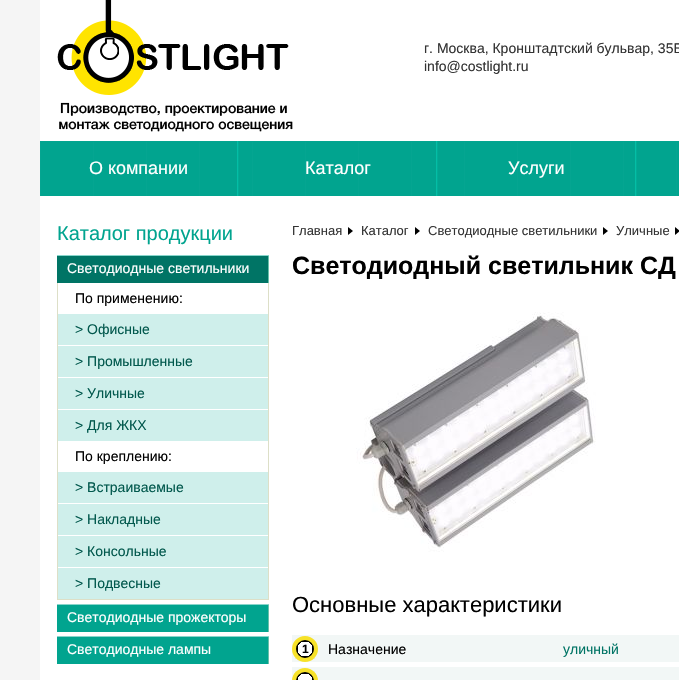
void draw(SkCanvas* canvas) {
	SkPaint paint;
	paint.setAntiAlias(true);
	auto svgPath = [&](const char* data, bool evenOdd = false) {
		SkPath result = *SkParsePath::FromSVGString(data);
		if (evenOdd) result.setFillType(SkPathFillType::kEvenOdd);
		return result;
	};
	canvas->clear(0xfff5f5f5);
	paint.setColor(0xffffffff);
	canvas->drawRect(SkRect::MakeXYWH(40, 0, 639, 680), paint);
	canvas->drawImageRect(SkImages::DeferredFromEncodedData(SkData::MakeFromFileName("img1.png")), SkRect::MakeXYWH(57, 0, 236, 132), SkSamplingOptions());
	SkFont f1(fontMgr->matchFamilyStyle("Liberation Sans", SkFontStyle::Normal()), 14);
	f1.setSubpixel(true);
	paint.setColor(0xff333333);
	canvas->drawString("г. Москва, Кронштадтский бульвар, 35Б", 424, 53, f1, paint);
	canvas->drawString("info@costlight.ru", 424, 71, f1, paint);
	canvas->drawImageRect(SkImages::DeferredFromEncodedData(SkData::MakeFromFileName("img2.png")), SkRect::MakeXYWH(40, 141, 639, 55), SkSamplingOptions());
	canvas->drawImageRect(SkImages::DeferredFromEncodedData(SkData::MakeFromFileName("img3.png")), SkRect::MakeXYWH(40, 141, 639, 1), SkSamplingOptions());
	paint.setColor(0xff04bea6);
	canvas->drawRect(SkRect::MakeXYWH(237, 141, 1, 55), paint);
	SkFont f2(fontMgr->matchFamilyStyle("Liberation Sans", SkFontStyle::Normal()), 18);
	f2.setSubpixel(true);
	paint.setColor(0xffffffff);
	canvas->drawString("О компании", 89, 174, f2, paint);
	paint.setColor(0xff04bea6);
	canvas->drawRect(SkRect::MakeXYWH(436, 141, 1, 55), paint);
	paint.setColor(0xff02ac96);
	canvas->drawRect(SkRect::MakeXYWH(238, 141, 1, 55), paint);
	paint.setColor(0xffffffff);
	canvas->drawString("Каталог", 305, 174, f2, paint);
	paint.setColor(0xff04bea6);
	canvas->drawRect(SkRect::MakeXYWH(635, 141, 1, 55), paint);
	paint.setColor(0xff02ac96);
	canvas->drawRect(SkRect::MakeXYWH(437, 141, 1, 55), paint);
	paint.setColor(0xffffffff);
	canvas->drawString("Услуги", 508, 174, f2, paint);
	paint.setColor(0xff02ac96);
	canvas->drawRect(SkRect::MakeXYWH(636, 141, 1, 55), paint);
	SkFont f3(fontMgr->matchFamilyStyle("Liberation Sans", SkFontStyle::Normal()), 20);
	f3.setSubpixel(true);
	paint.setColor(0xff01a48f);
	canvas->drawString("Каталог продукции", 57, 240, f3, paint);
	paint.setColor(0xff88d5cb);
	canvas->drawRect(SkRect::MakeXYWH(57, 255, 212, 1), paint);
	paint.setColor(0xff007465);
	canvas->drawRect(SkRect::MakeXYWH(57, 256, 211, 27), paint);
	paint.setColor(0xff69c0aa);
	canvas->drawRect(SkRect::MakeXYWH(268, 256, 1, 27), paint);
	paint.setColor(0xffffffff);
	canvas->drawString("Светодиодные светильники", 67, 273, f1, paint);
	paint.setColor(0xffdddfc7);
	canvas->drawRect(SkRect::MakeXYWH(268, 283, 1, 317), paint);
	canvas->drawRect(SkRect::MakeXYWH(57, 599, 212, 1), paint);
	canvas->drawRect(SkRect::MakeXYWH(57, 283, 1, 317), paint);
	paint.setColor(0xff000000);
	canvas->drawString("По применению:", 75, 303, f1, paint);
	paint.setColor(0xffcfefeb);
	canvas->drawRect(SkRect::MakeXYWH(58, 314, 210, 31), paint);
	paint.setColor(0xff01584d);
	canvas->drawString("> Офисные", 75, 334, f1, paint);
	paint.setColor(0xffcfefeb);
	canvas->drawRect(SkRect::MakeXYWH(58, 346, 210, 31), paint);
	paint.setColor(0xff01584d);
	canvas->drawString("> Промышленные", 75, 366, f1, paint);
	paint.setColor(0xffcfefeb);
	canvas->drawRect(SkRect::MakeXYWH(58, 378, 210, 31), paint);
	paint.setColor(0xff01584d);
	canvas->drawString("> Уличные", 75, 398, f1, paint);
	paint.setColor(0xffcfefeb);
	canvas->drawRect(SkRect::MakeXYWH(58, 410, 210, 31), paint);
	paint.setColor(0xff01584d);
	canvas->drawString("> Для ЖКХ", 75, 430, f1, paint);
	paint.setColor(0xff000000);
	canvas->drawString("По креплению:", 75, 461, f1, paint);
	paint.setColor(0xffcfefeb);
	canvas->drawRect(SkRect::MakeXYWH(58, 472, 210, 31), paint);
	paint.setColor(0xff01584d);
	canvas->drawString("> Встраиваемые", 75, 492, f1, paint);
	paint.setColor(0xffcfefeb);
	canvas->drawRect(SkRect::MakeXYWH(58, 504, 210, 31), paint);
	paint.setColor(0xff01584d);
	canvas->drawString("> Накладные", 75, 524, f1, paint);
	paint.setColor(0xffcfefeb);
	canvas->drawRect(SkRect::MakeXYWH(58, 536, 210, 31), paint);
	paint.setColor(0xff01584d);
	canvas->drawString("> Консольные", 75, 556, f1, paint);
	paint.setColor(0xffcfefeb);
	canvas->drawRect(SkRect::MakeXYWH(58, 568, 210, 31), paint);
	paint.setColor(0xff01584d);
	canvas->drawString("> Подвесные", 75, 588, f1, paint);
	paint.setColor(0xff01a48f);
	canvas->drawRect(SkRect::MakeXYWH(57, 605, 211, 27), paint);
	paint.setColor(0xff88d5cb);
	canvas->drawRect(SkRect::MakeXYWH(57, 604, 212, 1), paint);
	paint.setColor(0xff69c0aa);
	canvas->drawRect(SkRect::MakeXYWH(268, 605, 1, 27), paint);
	paint.setColor(0xffffffff);
	canvas->drawString("Светодиодные прожекторы", 67, 622, f1, paint);
	paint.setColor(0xff01a48f);
	canvas->drawRect(SkRect::MakeXYWH(57, 637, 211, 27), paint);
	paint.setColor(0xff88d5cb);
	canvas->drawRect(SkRect::MakeXYWH(57, 636, 212, 1), paint);
	paint.setColor(0xff69c0aa);
	canvas->drawRect(SkRect::MakeXYWH(268, 637, 1, 27), paint);
	paint.setColor(0xffffffff);
	canvas->drawString("Светодиодные лампы", 67, 654, f1, paint);
	SkFont f4(fontMgr->matchFamilyStyle("Liberation Sans", SkFontStyle::Normal()), 13);
	f4.setSubpixel(true);
	paint.setColor(0xff333333);
	canvas->drawString("Главная", 292, 235, f4, paint);
	paint.setColor(0xff000000);
	canvas->drawPath(svgPath("M348 235V227L353 231Z"), paint);
	paint.setColor(0xff333333);
	canvas->drawString("Каталог", 361, 235, f4, paint);
	paint.setColor(0xff000000);
	canvas->drawPath(svgPath("M415 235V227L420 231Z"), paint);
	paint.setColor(0xff333333);
	canvas->drawString("Светодиодные светильники", 428, 235, f4, paint);
	paint.setColor(0xff000000);
	canvas->drawPath(svgPath("M603 235V227L608 231Z"), paint);
	paint.setColor(0xff333333);
	canvas->drawString("Уличные", 616, 235, f4, paint);
	paint.setColor(0xff000000);
	canvas->drawPath(svgPath("M675 235V227L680 231Z"), paint);
	SkFont f5(fontMgr->matchFamilyStyle("Liberation Sans", SkFontStyle::Bold()), 25);
	f5.setSubpixel(true);
	canvas->drawString("Светодиодный светильник СД", 292, 274, f5, paint);
	canvas->drawImageRect(SkImages::DeferredFromEncodedData(SkData::MakeFromFileName("img4.png")), SkRect::MakeXYWH(356, 312, 240, 240), SkSamplingOptions());
	SkFont f6(fontMgr->matchFamilyStyle("Liberation Sans", SkFontStyle::Normal()), 22);
	f6.setSubpixel(true);
	canvas->drawString("Основные характеристики", 292, 612, f6, paint);
	paint.setColor(0xfff2f7f6);
	canvas->drawRect(SkRect::MakeXYWH(292, 635, 387, 27), paint);
	canvas->save();
	canvas->clipPath(svgPath("M305 636C312 636 318 642 318 649C318 656 312 662 305 662C298 662 292 656 292 649C292 642 298 636 305 636Z"), true);
	{
		const SkColor colors[] = {0xffffffff, 0xff000000};
		const float stops[] = {0.57, 0.57};
		paint.setShader(SkGradientShader::MakeRadial({287, 631}, 13, colors, stops, 2, SkTileMode::kClamp));
		paint.setAlpha(255);
	}
	canvas->drawRect(SkRect::MakeXYWH(292, 639, 4, 1), paint);
	{
		const SkColor colors[] = {0xffffffff, 0xff000000};
		const float stops[] = {0.57, 0.57};
		paint.setShader(SkGradientShader::MakeRadial({323, 631}, 13, colors, stops, 2, SkTileMode::kClamp));
		paint.setAlpha(255);
	}
	canvas->drawRect(SkRect::MakeXYWH(314, 639, 4, 1), paint);
	canvas->restore();
	{
		const SkColor colors[] = {0xffffffff, 0xff000000};
		const float stops[] = {0.57, 0.57};
		paint.setShader(SkGradientShader::MakeRadial({305, 649}, 13, colors, stops, 2, SkTileMode::kClamp));
		paint.setAlpha(255);
	}
	canvas->drawRect(SkRect::MakeXYWH(296, 640, 18, 18), paint);
	canvas->save();
	canvas->clipPath(svgPath("M305 636C312 636 318 642 318 649C318 656 312 662 305 662C298 662 292 656 292 649C292 642 298 636 305 636Z"), true);
	{
		const SkColor colors[] = {0xffffffff, 0xff000000};
		const float stops[] = {0.57, 0.57};
		paint.setShader(SkGradientShader::MakeRadial({287, 667}, 13, colors, stops, 2, SkTileMode::kClamp));
		paint.setAlpha(255);
	}
	canvas->drawRect(SkRect::MakeXYWH(292, 658, 4, 1), paint);
	{
		const SkColor colors[] = {0xffffffff, 0xff000000};
		const float stops[] = {0.57, 0.57};
		paint.setShader(SkGradientShader::MakeRadial({323, 667}, 13, colors, stops, 2, SkTileMode::kClamp));
		paint.setAlpha(255);
	}
	canvas->drawRect(SkRect::MakeXYWH(314, 658, 4, 1), paint);
	canvas->restore();
	paint.setStroke(true);
	paint.setStrokeWidth(4);
	paint.setShader(nullptr);
	paint.setColor(0xfff7e229);
	canvas->drawCircle(305, 649, 11, paint);
	SkFont f7(fontMgr->matchFamilyStyle("Liberation Sans", SkFontStyle::Bold()), 12);
	f7.setSubpixel(true);
	paint.setStroke(false);
	paint.setColor(0xff000000);
	canvas->drawString("1", 302, 653, f7, paint);
	canvas->drawString("Назначение", 328, 654, f1, paint);
	paint.setColor(0xff007465);
	canvas->drawString("уличный", 563, 654, f1, paint);
	paint.setColor(0xfff2f7f6);
	canvas->drawRect(SkRect::MakeXYWH(292, 667, 387, 13), paint);
	canvas->save();
	canvas->clipPath(svgPath("M305 668C312 668 318 674 318 681C318 688 312 694 305 694C298 694 292 688 292 681C292 674 298 668 305 668Z"), true);
	{
		const SkColor colors[] = {0xffffffff, 0xff000000};
		const float stops[] = {0.57, 0.57};
		paint.setShader(SkGradientShader::MakeRadial({287, 663}, 13, colors, stops, 2, SkTileMode::kClamp));
		paint.setAlpha(255);
	}
	canvas->drawRect(SkRect::MakeXYWH(292, 671, 4, 1), paint);
	{
		const SkColor colors[] = {0xffffffff, 0xff000000};
		const float stops[] = {0.57, 0.57};
		paint.setShader(SkGradientShader::MakeRadial({323, 663}, 13, colors, stops, 2, SkTileMode::kClamp));
		paint.setAlpha(255);
	}
	canvas->drawRect(SkRect::MakeXYWH(314, 671, 4, 1), paint);
	canvas->restore();
	{
		const SkColor colors[] = {0xffffffff, 0xff000000};
		const float stops[] = {0.57, 0.57};
		paint.setShader(SkGradientShader::MakeRadial({305, 681}, 13, colors, stops, 2, SkTileMode::kClamp));
		paint.setAlpha(255);
	}
	canvas->drawRect(SkRect::MakeXYWH(296, 672, 18, 8), paint);
	paint.setStroke(true);
	paint.setShader(nullptr);
	paint.setColor(0xfff7e229);
	canvas->drawCircle(305, 681, 11, paint);
}
